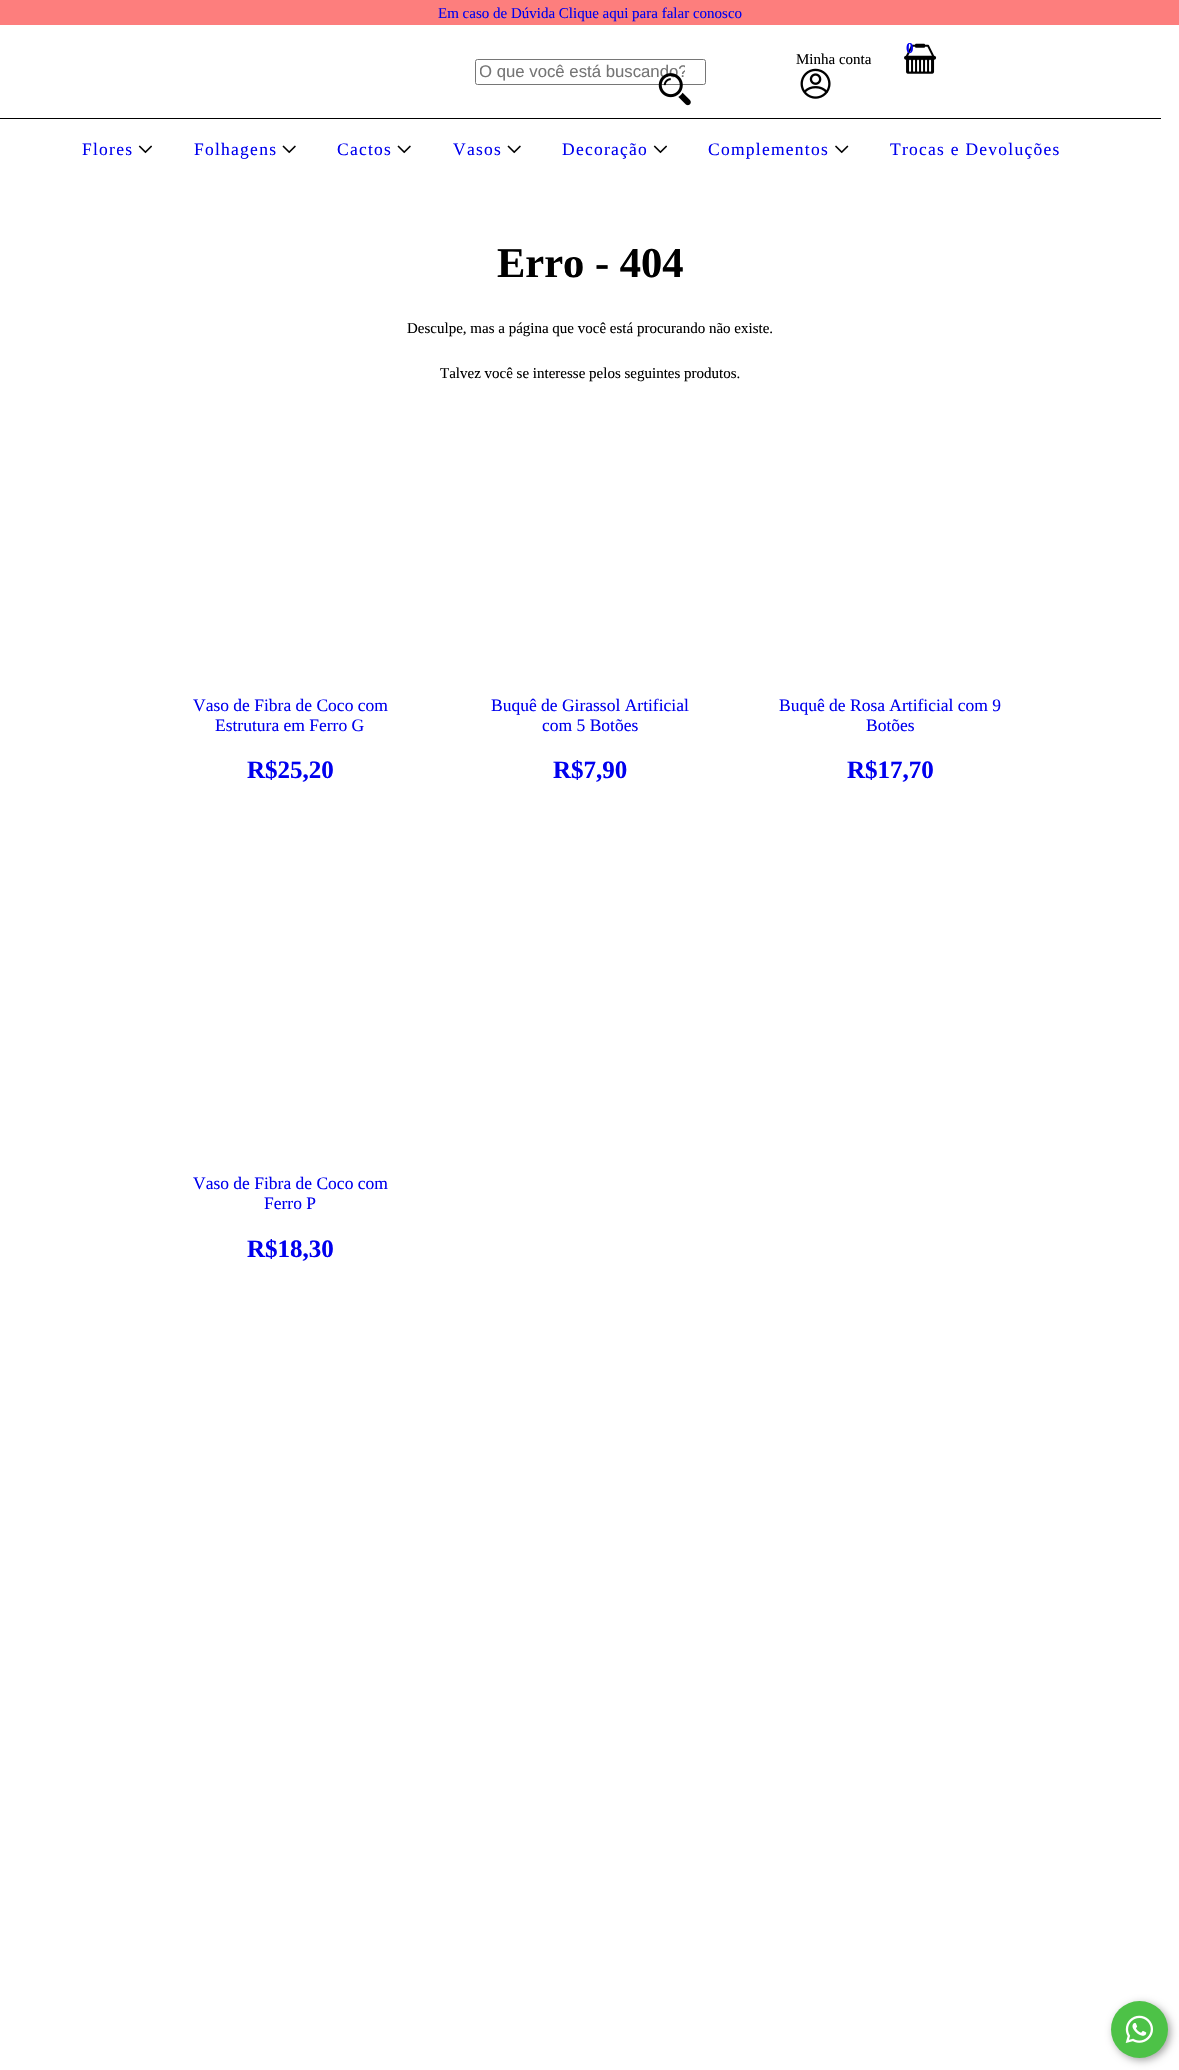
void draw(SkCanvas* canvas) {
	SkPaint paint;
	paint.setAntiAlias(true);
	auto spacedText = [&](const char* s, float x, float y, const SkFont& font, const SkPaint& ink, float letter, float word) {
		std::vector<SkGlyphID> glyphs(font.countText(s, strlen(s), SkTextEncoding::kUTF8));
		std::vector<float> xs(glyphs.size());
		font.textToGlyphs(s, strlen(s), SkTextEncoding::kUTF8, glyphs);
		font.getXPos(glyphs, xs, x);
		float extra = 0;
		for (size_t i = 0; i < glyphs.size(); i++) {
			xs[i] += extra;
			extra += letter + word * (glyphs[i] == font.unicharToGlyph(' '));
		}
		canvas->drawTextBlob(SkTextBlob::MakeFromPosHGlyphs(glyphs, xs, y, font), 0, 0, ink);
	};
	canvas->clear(0xffffffff);
	paint.setColor(0xfffd7e7d);
	canvas->drawRect(SkRect::MakeXYWH(0, 0, 1179, 25), paint);
	SkFont f1(fontMgr->matchFamilyStyle("Liberation Serif", SkFontStyle::Normal()), 15);
	f1.setSubpixel(true);
	paint.setColor(0xff0000ee);
	canvas->drawString("Em caso de Dúvida Clique aqui para falar conosco", 438, 18, f1, paint);
	canvas->drawImageRect(SkImages::DeferredFromEncodedData(SkData::MakeFromFileName("img1.png")), SkRect::MakeXYWH(904, 43, 33, 31), SkSamplingOptions());
	SkFont f2(fontMgr->matchFamilyStyle("Liberation Serif", SkFontStyle::Bold()), 15);
	f2.setSubpixel(true);
	canvas->drawString("0", 906, 53, f2, paint);
	paint.setColor(0xff000000);
	canvas->drawString("Minha conta", 796, 64, f1, paint);
	canvas->drawImageRect(SkImages::DeferredFromEncodedData(SkData::MakeFromFileName("img2.png")), SkRect::MakeXYWH(800, 68, 31, 31), SkSamplingOptions());
	paint.setStroke(true);
	paint.setStrokeWidth(1);
	paint.setColor(0xff767676);
	canvas->drawRoundRect(SkRect::MakeXYWH(475.5, 59.5, 230, 25), 2, 2, paint);
	canvas->save();
	canvas->clipRect(SkRect::MakeXYWH(480, 63, 205, 18));
	SkFont f3(fontMgr->matchFamilyStyle("Liberation Sans", SkFontStyle::Normal()), 16.75);
	f3.setSubpixel(true);
	paint.setStroke(false);
	paint.setColor(0xff757575);
	canvas->drawString("O que você está buscando?", 479, 77, f3, paint);
	canvas->restore();
	canvas->drawImageRect(SkImages::DeferredFromEncodedData(SkData::MakeFromFileName("img3.png")), SkRect::MakeXYWH(658, 73, 33, 33), SkSamplingOptions());
	paint.setColor(0xff000000);
	canvas->drawRect(SkRect::MakeXYWH(0, 118, 1161, 1), paint);
	SkFont f4(fontMgr->matchFamilyStyle("Liberation Serif", SkFontStyle::Normal()), 17.5);
	f4.setSubpixel(true);
	paint.setColor(0xff0000ee);
	spacedText("Flores", 82, 155, f4, paint, 1.25, 0);
	canvas->drawImageRect(SkImages::DeferredFromEncodedData(SkData::MakeFromFileName("img4.png")), SkRect::MakeXYWH(138, 145, 14, 9), SkSamplingOptions());
	spacedText("Folhagens", 194, 155, f4, paint, 1.25, 0);
	canvas->drawImageRect(SkImages::DeferredFromEncodedData(SkData::MakeFromFileName("img5.png")), SkRect::MakeXYWH(282, 145, 14, 9), SkSamplingOptions());
	spacedText("Cactos", 337, 155, f4, paint, 1.25, 0);
	canvas->drawImageRect(SkImages::DeferredFromEncodedData(SkData::MakeFromFileName("img5.png")), SkRect::MakeXYWH(397, 145, 14, 9), SkSamplingOptions());
	spacedText("Vasos", 453, 155, f4, paint, 1.25, 0);
	canvas->drawImageRect(SkImages::DeferredFromEncodedData(SkData::MakeFromFileName("img5.png")), SkRect::MakeXYWH(507, 145, 14, 9), SkSamplingOptions());
	spacedText("Decoração", 562, 155, f4, paint, 1.25, 0);
	canvas->drawImageRect(SkImages::DeferredFromEncodedData(SkData::MakeFromFileName("img4.png")), SkRect::MakeXYWH(653, 145, 14, 9), SkSamplingOptions());
	spacedText("Complementos", 708, 155, f4, paint, 1.25, 0);
	canvas->drawImageRect(SkImages::DeferredFromEncodedData(SkData::MakeFromFileName("img6.png")), SkRect::MakeXYWH(835, 145, 14, 9), SkSamplingOptions());
	spacedText("Trocas e Devoluções", 890, 155, f4, paint, 1.25, 0);
	SkFont f5(fontMgr->matchFamilyStyle("Liberation Serif", SkFontStyle::Bold()), 42.5);
	f5.setSubpixel(true);
	paint.setColor(0xff000000);
	canvas->drawString("Erro - 404", 497, 277, f5, paint);
	canvas->drawString("Desculpe, mas a página que você está procurando não existe.", 407, 333, f1, paint);
	canvas->drawString("Talvez você se interesse pelos seguintes produtos.", 440, 378, f1, paint);
	paint.setColor(0xff0000ee);
	canvas->drawString("Vaso de Fibra de Coco com", 193, 711, f4, paint);
	canvas->drawString("Estrutura em Ferro G", 215, 731, f4, paint);
	SkFont f6(fontMgr->matchFamilyStyle("Liberation Serif", SkFontStyle::Bold()), 25);
	f6.setSubpixel(true);
	canvas->drawString("R$25,20", 247, 778, f6, paint);
	canvas->drawString("Buquê de Girassol Artificial", 491, 711, f4, paint);
	canvas->drawString("com 5 Botões", 542, 731, f4, paint);
	canvas->drawString("R$7,90", 553, 778, f6, paint);
	canvas->drawString("Buquê de Rosa Artificial com 9", 779, 711, f4, paint);
	canvas->drawString("Botões", 866, 731, f4, paint);
	canvas->drawString("R$17,70", 847, 778, f6, paint);
	canvas->drawString("Vaso de Fibra de Coco com", 193, 1189, f4, paint);
	canvas->drawString("Ferro P", 264, 1209, f4, paint);
	canvas->drawString("R$18,30", 247, 1257, f6, paint);
	paint.setColor(0x66000000);
	paint.setMaskFilter(SkMaskFilter::MakeBlur(kNormal_SkBlurStyle, 4));
	canvas->drawRoundRect(SkRect::MakeXYWH(1114, 2004, 56, 56), 28, 28, paint);
	paint.setMaskFilter(nullptr);
	paint.setColor(0xff4dc247);
	canvas->drawCircle(1139.5, 2029.5, 28.5, paint);
	canvas->drawImageRect(SkImages::DeferredFromEncodedData(SkData::MakeFromFileName("img7.png")), SkRect::MakeXYWH(1125, 2015, 28, 28), SkSamplingOptions());
}
